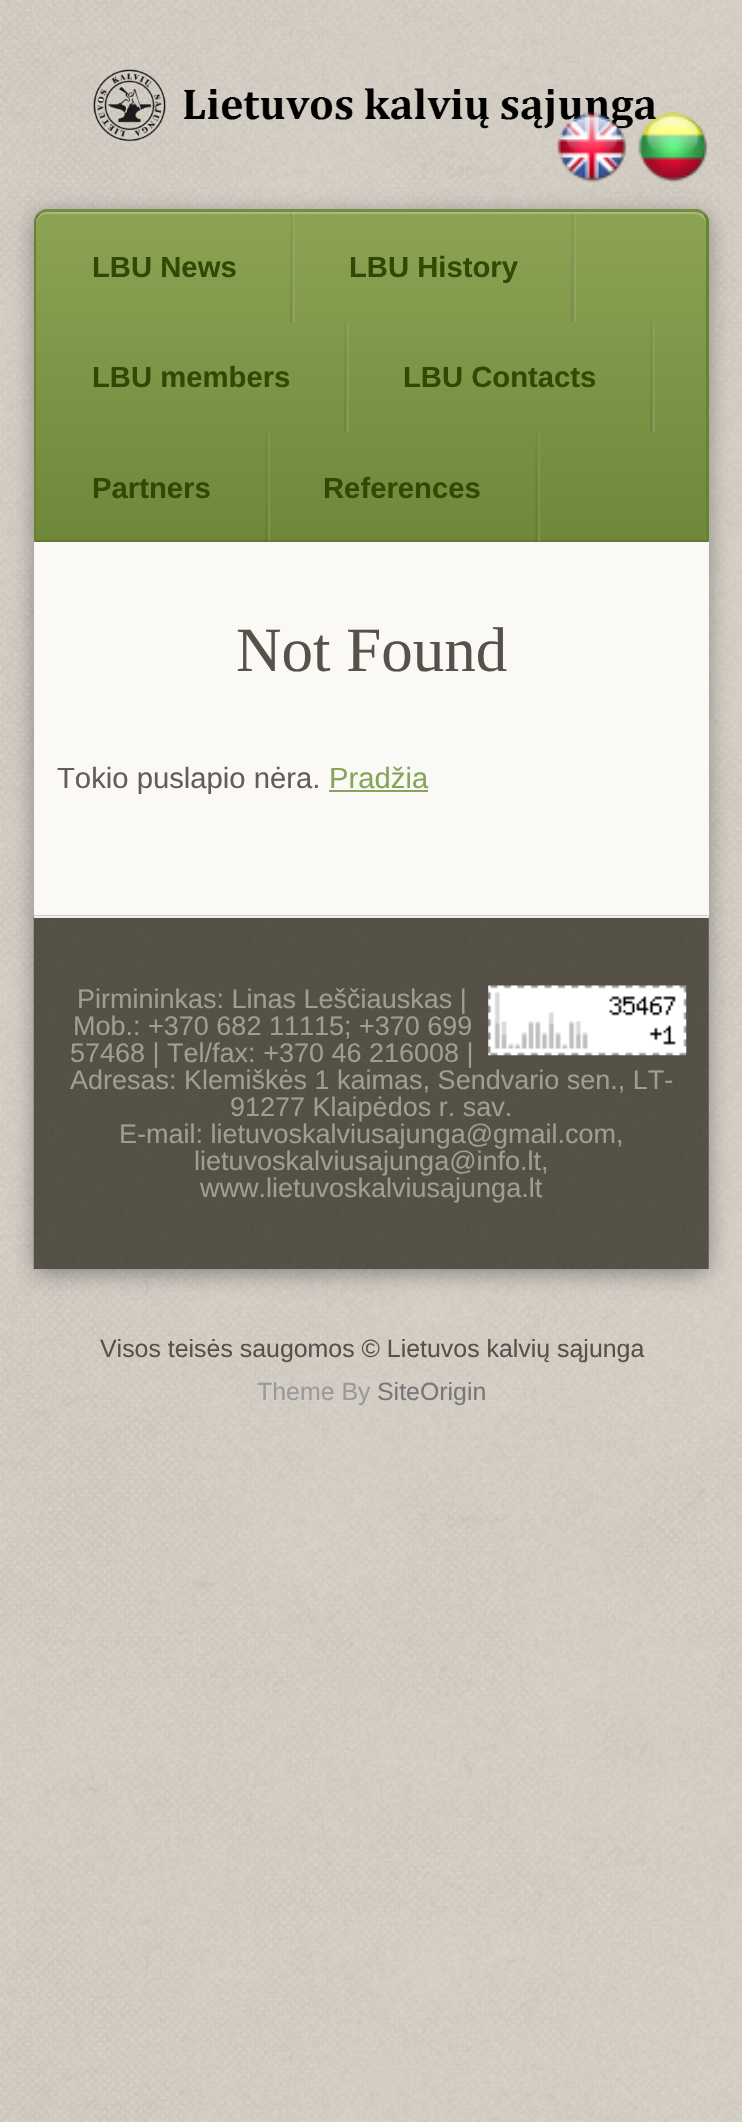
void draw(SkCanvas* canvas) {
	SkPaint paint;
	paint.setAntiAlias(true);
	auto svgPath = [&](const char* data, bool evenOdd = false) {
		SkPath result = *SkParsePath::FromSVGString(data);
		if (evenOdd) result.setFillType(SkPathFillType::kEvenOdd);
		return result;
	};
	canvas->clear(0xffffffff);
	canvas->drawImageRect(SkImages::DeferredFromEncodedData(SkData::MakeFromFileName("img1.png")), SkRect::MakeXYWH(0, 0, 742, 2122), SkSamplingOptions());
	canvas->drawImageRect(SkImages::DeferredFromEncodedData(SkData::MakeFromFileName("img2.png")), SkRect::MakeXYWH(93, 69, 564, 73), SkSamplingOptions());
	paint.setColor(0x59000000);
	paint.setMaskFilter(SkMaskFilter::MakeBlur(kNormal_SkBlurStyle, 11));
	canvas->drawRoundRect(SkRect::MakeXYWH(34, 214, 675, 1060), 11, 11, paint);
	paint.setMaskFilter(nullptr);
	canvas->drawImageRect(SkImages::DeferredFromEncodedData(SkData::MakeFromFileName("img3.png")), SkRect::MakeXYWH(557, 112, 70, 71), SkSamplingOptions());
	canvas->drawImageRect(SkImages::DeferredFromEncodedData(SkData::MakeFromFileName("img4.png")), SkRect::MakeXYWH(638, 112, 70, 71), SkSamplingOptions());
	{
		const SkColor colors[] = {0xff6e8739, 0xff8ca354};
		const float stops[] = {0, 1};
		const SkPoint ends[] = {{36, 542}, {36, 212}};
		paint.setShader(SkGradientShader::MakeLinear(ends, colors, stops, 2, SkTileMode::kClamp));
		paint.setAlpha(255);
	}
	canvas->drawPath(svgPath("M47 212H696C702 212 707 217 707 223V542H36V223C36 217 41 212 47 212Z"), paint);
	paint.setShader(nullptr);
	paint.setColor(0x1a000000);
	canvas->drawPath(svgPath("M36 540V542H707V223L706 218V540Z"), paint);
	paint.setColor(0x40ffffff);
	canvas->drawPath(svgPath("M47 214H695C701 214 706 219 706 225V542H707V223C707 217 702 212 696 212H47C41 212 36 217 36 223V225C36 219 41 214 47 214Z"), paint);
	paint.setColor(0xff758c3e);
	canvas->drawPath(svgPath("M47 212C44 212 41 213 40 215L38 213C40 211 42 210 45 209H698C701 210 703 211 705 213L703 215C701 213 698 212 695 212Z"), paint);
	paint.setColor(0xff688234);
	canvas->drawPath(svgPath("M709 220V542H706V223C706 220 705 217 703 215L705 213C707 215 708 217 709 220Z"), paint);
	canvas->drawPath(svgPath("M40 215L38 213C35 216 34 219 34 223V542H36V223C36 220 37 217 40 215Z"), paint);
	SkFont f1(fontMgr->matchFamilyStyle("Liberation Sans", SkFontStyle::Bold()), 29.25);
	f1.setSubpixel(true);
	paint.setColor(0xff324906);
	canvas->drawString("LBU News", 92, 277, f1, paint);
	canvas->drawImageRect(SkImages::DeferredFromEncodedData(SkData::MakeFromFileName("img5.png")), SkRect::MakeXYWH(290, 211, 5, 111), SkSamplingOptions());
	canvas->drawString("LBU History", 349, 277, f1, paint);
	canvas->drawImageRect(SkImages::DeferredFromEncodedData(SkData::MakeFromFileName("img6.png")), SkRect::MakeXYWH(571, 211, 5, 111), SkSamplingOptions());
	canvas->drawString("LBU members", 92, 387, f1, paint);
	canvas->drawImageRect(SkImages::DeferredFromEncodedData(SkData::MakeFromFileName("img7.png")), SkRect::MakeXYWH(344, 322, 5, 110), SkSamplingOptions());
	canvas->drawString("LBU Contacts", 403, 387, f1, paint);
	canvas->drawImageRect(SkImages::DeferredFromEncodedData(SkData::MakeFromFileName("img7.png")), SkRect::MakeXYWH(650, 322, 5, 110), SkSamplingOptions());
	canvas->drawString("Partners", 92, 498, f1, paint);
	paint.setColor(0xfffbf9f5);
	canvas->drawRect(SkRect::MakeXYWH(34, 542, 675, 374), paint);
	canvas->drawImageRect(SkImages::DeferredFromEncodedData(SkData::MakeFromFileName("img8.png")), SkRect::MakeXYWH(265, 432, 5, 111), SkSamplingOptions());
	paint.setColor(0xff324906);
	canvas->drawString("References", 323, 498, f1, paint);
	canvas->drawImageRect(SkImages::DeferredFromEncodedData(SkData::MakeFromFileName("img8.png")), SkRect::MakeXYWH(535, 432, 5, 111), SkSamplingOptions());
	SkFont f2(fontMgr->matchFamilyStyle("Liberation Serif", SkFontStyle::Normal()), 63);
	f2.setSubpixel(true);
	paint.setColor(0xff575249);
	canvas->drawString("Not Found", 236, 671, f2, paint);
	SkFont f3(fontMgr->matchFamilyStyle("Liberation Sans", SkFontStyle::Normal()), 29.25);
	f3.setSubpixel(true);
	paint.setColor(0xff635d55);
	canvas->drawString("Tokio puslapio nėra.", 57, 788, f3, paint);
	paint.setColor(0xff87a55a);
	canvas->drawString("Pradžia", 329, 788, f3, paint);
	canvas->drawRect(SkRect::MakeXYWH(329, 790, 99, 2), paint);
	canvas->drawImageRect(SkImages::DeferredFromEncodedData(SkData::MakeFromFileName("img9.png")), SkRect::MakeXYWH(33, 915, 676, 354), SkSamplingOptions());
	paint.setColor(0xffeeeeee);
	canvas->drawRect(SkRect::MakeXYWH(34, 916, 675, 2), paint);
	canvas->drawImageRect(SkImages::DeferredFromEncodedData(SkData::MakeFromFileName("img10.png")), SkRect::MakeXYWH(488, 985, 199, 71), SkSamplingOptions());
	SkFont f4(fontMgr->matchFamilyStyle("Liberation Sans", SkFontStyle::Normal()), 27);
	f4.setSubpixel(true);
	paint.setColor(0xffa19d93);
	canvas->drawString("Pirmininkas: Linas Leščiauskas |", 77, 1008, f4, paint);
	canvas->drawString("Mob.: +370 682 11115; +370 699", 73, 1035, f4, paint);
	canvas->drawString("57468 | Tel/fax: +370 46 216008 |", 70, 1062, f4, paint);
	canvas->drawString("Adresas: Klemiškės 1 kaimas, Sendvario sen., LT-", 70, 1089, f4, paint);
	canvas->drawString("91277 Klaipėdos r. sav.", 230, 1116, f4, paint);
	canvas->drawString("E-mail: lietuvoskalviusajunga@gmail.com,", 119, 1143, f4, paint);
	canvas->drawString("lietuvoskalviusajunga@info.lt,", 194, 1170, f4, paint);
	canvas->drawString("www.lietuvoskalviusajunga.lt", 200, 1197, f4, paint);
	SkFont f5(fontMgr->matchFamilyStyle("Liberation Sans", SkFontStyle::Normal()), 24.9);
	f5.setSubpixel(true);
	paint.setColor(0xff575249);
	canvas->drawString("Visos teisės saugomos © Lietuvos kalvių sąjunga", 100, 1357, f5, paint);
	paint.setColor(0xff999999);
	canvas->drawString("Theme By", 257, 1400, f5, paint);
	paint.setColor(0xff777777);
	canvas->drawString("SiteOrigin", 377, 1400, f5, paint);
}
